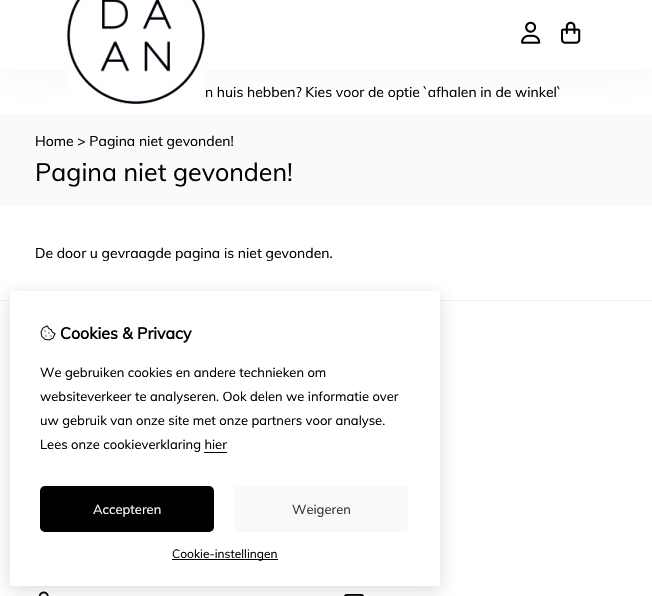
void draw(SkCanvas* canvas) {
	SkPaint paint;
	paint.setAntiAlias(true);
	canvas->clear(0xffffffff);
	paint.setColor(0xfffafafa);
	canvas->drawRect(SkRect::MakeXYWH(0, 114, 652, 92), paint);
	paint.setColor(0x75e7e7e7);
	paint.setMaskFilter(SkMaskFilter::MakeBlur(kNormal_SkBlurStyle, 20));
	canvas->drawRect(SkRect::MakeXYWH(0, 0, 652, 70), paint);
	paint.setMaskFilter(nullptr);
	paint.setColor(0xffffffff);
	canvas->drawRect(SkRect::MakeXYWH(0, 0, 652, 70), paint);
	canvas->drawImageRect(SkImages::DeferredFromEncodedData(SkData::MakeFromFileName("img1.png")), SkRect::MakeXYWH(67, 0, 138, 104), SkSamplingOptions());
	canvas->drawImageRect(SkImages::DeferredFromEncodedData(SkData::MakeFromFileName("img2.png")), SkRect::MakeXYWH(521, 21, 20, 23), SkSamplingOptions());
	canvas->drawImageRect(SkImages::DeferredFromEncodedData(SkData::MakeFromFileName("img3.png")), SkRect::MakeXYWH(561, 21, 20, 23), SkSamplingOptions());
	SkFont f1(fontMgr->matchFamilyStyle("Muli", SkFontStyle::Normal()), 14);
	f1.setSubpixel(true);
	paint.setColor(0xff000000);
	canvas->drawString("n huis hebben? Kies voor de optie `afhalen in de winkel`", 205, 97, f1, paint);
	canvas->drawString("Home > Pagina niet gevonden!", 35, 146, f1, paint);
	SkFont f2(fontMgr->matchFamilyStyle("Muli", SkFontStyle::Normal()), 25);
	f2.setSubpixel(true);
	canvas->drawString("Pagina niet gevonden!", 35, 181, f2, paint);
	canvas->drawString("De door u gevraagde pagina is niet gevonden.", 35, 258, f1, paint);
	paint.setColor(0xfff2f2f2);
	canvas->drawRect(SkRect::MakeXYWH(0, 300, 652, 1), paint);
	canvas->drawImageRect(SkImages::DeferredFromEncodedData(SkData::MakeFromFileName("img4.png")), SkRect::MakeXYWH(38, 591, 11, 5), SkSamplingOptions());
	canvas->drawImageRect(SkImages::DeferredFromEncodedData(SkData::MakeFromFileName("img5.png")), SkRect::MakeXYWH(344, 594, 20, 2), SkSamplingOptions());
	paint.setColor(0x334c4c4c);
	paint.setMaskFilter(SkMaskFilter::MakeBlur(kNormal_SkBlurStyle, 8.5));
	canvas->drawRect(SkRect::MakeXYWH(10, 295, 430, 295), paint);
	paint.setMaskFilter(nullptr);
	paint.setColor(0xffffffff);
	canvas->drawRect(SkRect::MakeXYWH(10, 291, 430, 295), paint);
	canvas->drawImageRect(SkImages::DeferredFromEncodedData(SkData::MakeFromFileName("img6.png")), SkRect::MakeXYWH(40, 325, 16, 16), SkSamplingOptions());
	SkFont f3(fontMgr->matchFamilyStyle("Muli", SkFontStyle::Bold()), 16);
	f3.setSubpixel(true);
	paint.setColor(0xff000000);
	canvas->drawString("Cookies & Privacy", 60, 339, f3, paint);
	SkFont f4(fontMgr->matchFamilyStyle("Muli", SkFontStyle::Normal()), 13);
	f4.setSubpixel(true);
	canvas->drawString("We gebruiken cookies en andere technieken om", 40, 377, f4, paint);
	canvas->drawString("websiteverkeer te analyseren. Ook delen we informatie over", 40, 401, f4, paint);
	canvas->drawString("uw gebruik van onze site met onze partners voor analyse.", 40, 425, f4, paint);
	canvas->drawString("Lees onze cookieverklaring hier", 40, 449, f4, paint);
	canvas->drawRect(SkRect::MakeXYWH(204, 452, 23, 1), paint);
	canvas->drawRoundRect(SkRect::MakeXYWH(40, 486, 174, 46), 5, 5, paint);
	paint.setColor(0xffffffff);
	canvas->drawString("Accepteren", 93, 514, f4, paint);
	paint.setColor(0xfff9f9f9);
	canvas->drawRoundRect(SkRect::MakeXYWH(234, 486, 174, 46), 5, 5, paint);
	paint.setColor(0xff333333);
	canvas->drawString("Weigeren", 292, 514, f4, paint);
	paint.setColor(0xff000000);
	canvas->drawRect(SkRect::MakeXYWH(172, 559, 106, 1), paint);
	SkFont f5(fontMgr->matchFamilyStyle("Muli", SkFontStyle::Normal()), 12);
	f5.setSubpixel(true);
	canvas->drawString("Cookie-instellingen", 172, 558, f5, paint);
}
